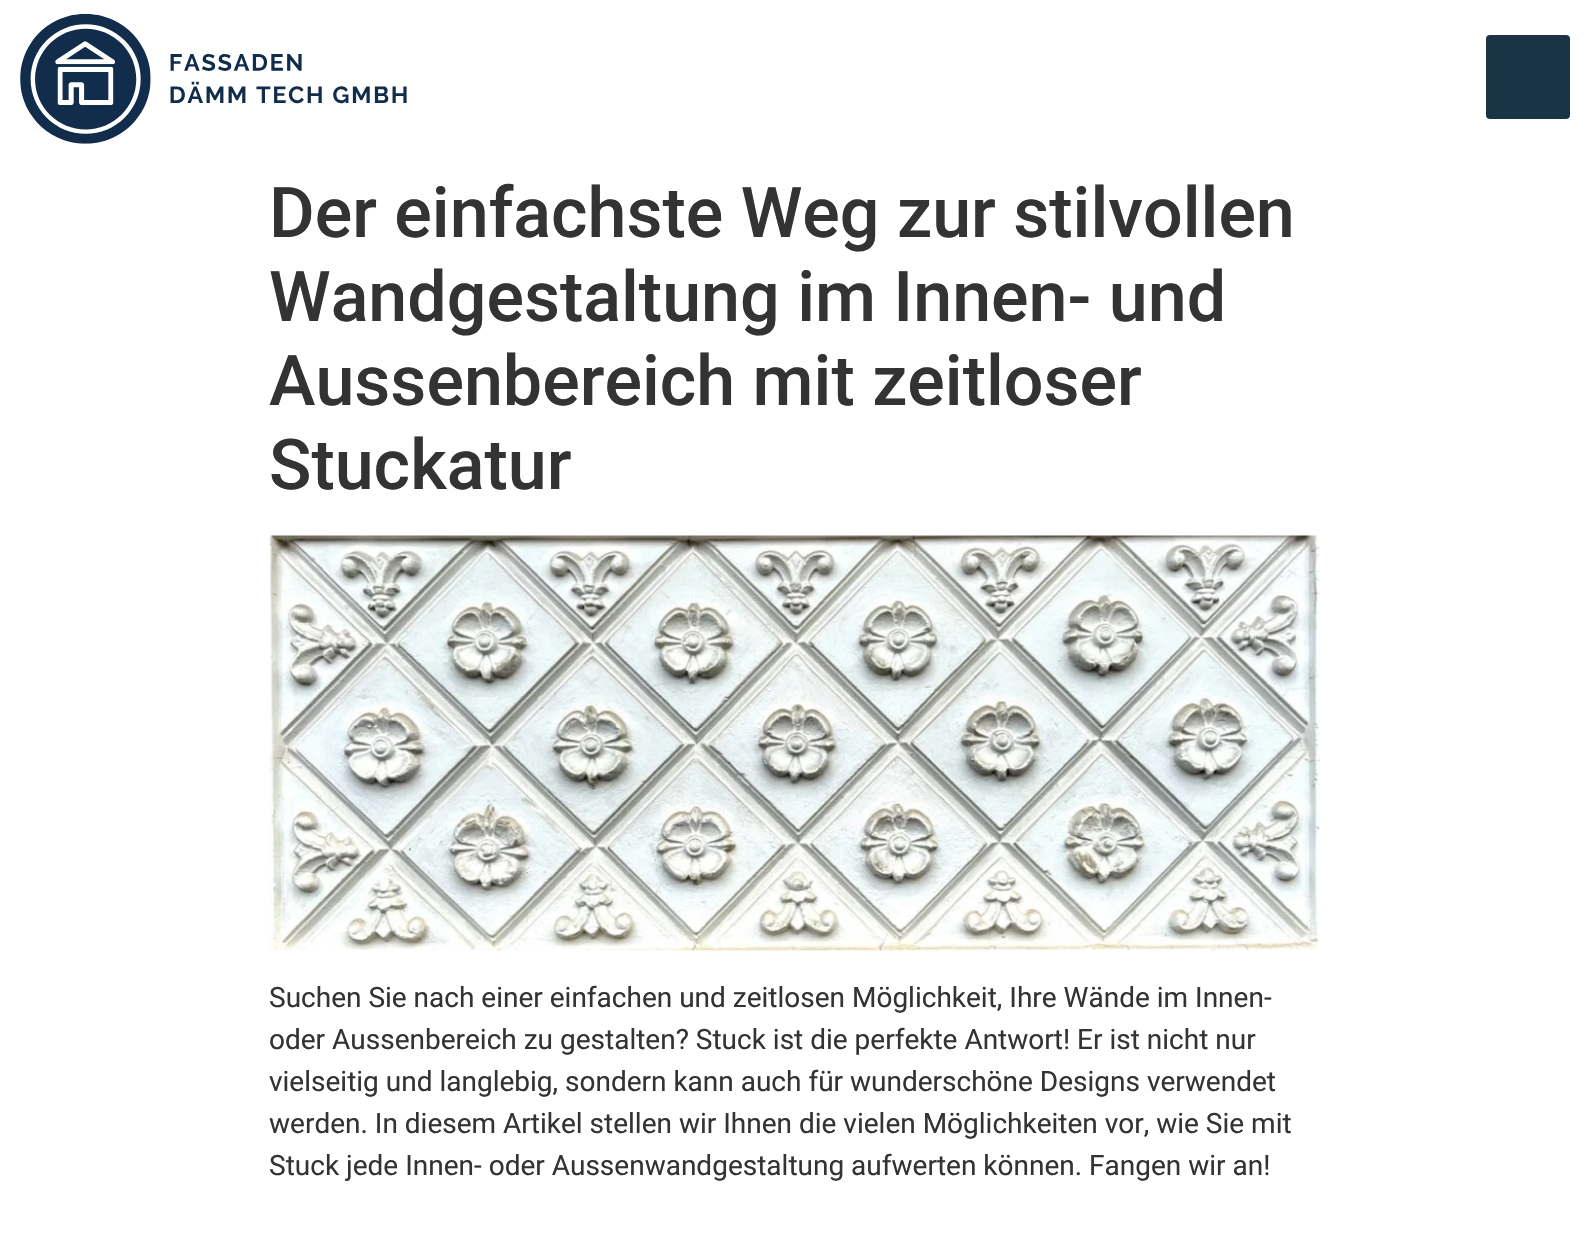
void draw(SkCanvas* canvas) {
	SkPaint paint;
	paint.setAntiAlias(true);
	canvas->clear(0xffffffff);
	canvas->drawImageRect(SkImages::DeferredFromEncodedData(SkData::MakeFromFileName("img1.png")), SkRect::MakeXYWH(20, 13, 387, 131), SkSamplingOptions());
	paint.setColor(0xff1a3446);
	canvas->drawRoundRect(SkRect::MakeXYWH(1486, 35, 84, 84), 4, 4, paint);
	SkFont f1(fontMgr->matchFamilyStyle("Roboto", SkFontStyle(500, SkFontStyle::kNormal_Width, SkFontStyle::kUpright_Slant)), 70);
	f1.setSubpixel(true);
	paint.setColor(0xff333333);
	canvas->drawString("Der einfachste Weg zur stilvollen", 269, 237, f1, paint);
	canvas->drawString("Wandgestaltung im Innen- und", 269, 321, f1, paint);
	canvas->drawString("Aussenbereich mit zeitloser", 269, 405, f1, paint);
	canvas->drawString("Stuckatur", 269, 489, f1, paint);
	canvas->drawImageRect(SkImages::DeferredFromEncodedData(SkData::MakeFromFileName("img2.png")), SkRect::MakeXYWH(269, 535, 1051, 416), SkSamplingOptions());
	SkFont f2(fontMgr->matchFamilyStyle("Roboto", SkFontStyle::Normal()), 28);
	f2.setSubpixel(true);
	canvas->drawString("Suchen Sie nach einer einfachen und zeitlosen Möglichkeit, Ihre Wände im Innen-", 269, 1007, f2, paint);
	canvas->drawString("oder Aussenbereich zu gestalten? Stuck ist die perfekte Antwort! Er ist nicht nur", 269, 1049, f2, paint);
	canvas->drawString("vielseitig und langlebig, sondern kann auch für wunderschöne Designs verwendet", 269, 1091, f2, paint);
	canvas->drawString("werden. In diesem Artikel stellen wir Ihnen die vielen Möglichkeiten vor, wie Sie mit", 269, 1133, f2, paint);
	canvas->drawString("Stuck jede Innen- oder Aussenwandgestaltung aufwerten können. Fangen wir an!", 269, 1175, f2, paint);
}
